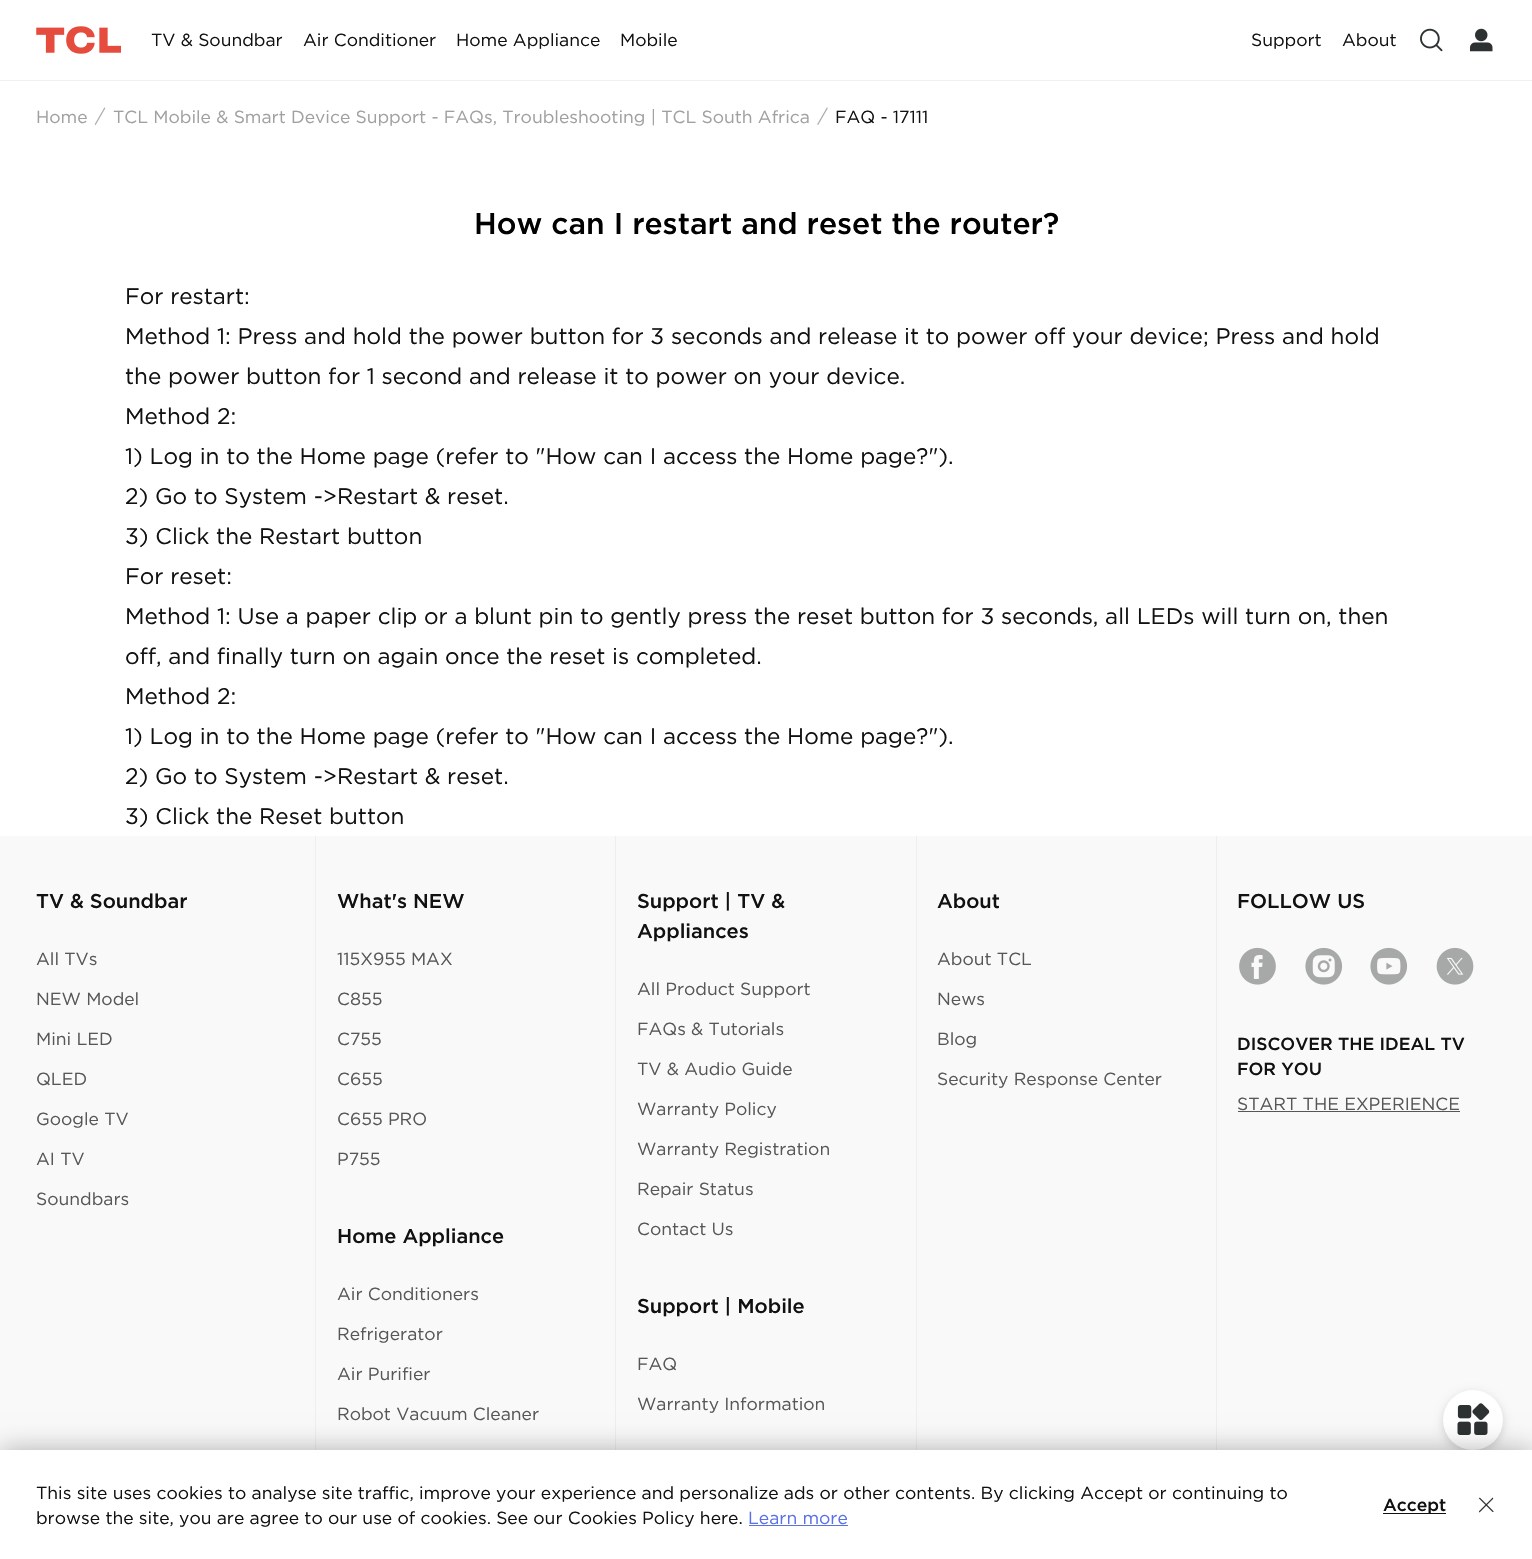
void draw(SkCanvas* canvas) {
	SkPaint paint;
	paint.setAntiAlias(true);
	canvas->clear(0xffffffff);
	paint.setColor(0xfff0f0f0);
	canvas->drawRect(SkRect::MakeXYWH(0, 80, 1532, 1), paint);
	canvas->drawImageRect(SkImages::DeferredFromEncodedData(SkData::MakeFromFileName("img1.png")), SkRect::MakeXYWH(36, 26, 85, 28), SkSamplingOptions());
	SkFont f1(fontMgr->matchFamilyStyle("Gotham", SkFontStyle::Normal()), 17.5);
	f1.setSubpixel(true);
	paint.setColor(0xff111111);
	canvas->drawString("TV & Soundbar", 151, 46, f1, paint);
	canvas->drawString("Air Conditioner", 303, 46, f1, paint);
	canvas->drawString("Home Appliance", 456, 46, f1, paint);
	canvas->drawString("Mobile", 620, 46, f1, paint);
	canvas->drawString("Support", 1251, 46, f1, paint);
	canvas->drawString("About", 1342, 46, f1, paint);
	canvas->drawImageRect(SkImages::DeferredFromEncodedData(SkData::MakeFromFileName("img2.png")), SkRect::MakeXYWH(1420, 28, 23, 24), SkSamplingOptions());
	canvas->drawImageRect(SkImages::DeferredFromEncodedData(SkData::MakeFromFileName("img3.png")), SkRect::MakeXYWH(1470, 28, 23, 24), SkSamplingOptions());
	paint.setColor(0xffa0a0a0);
	canvas->drawString("Home", 36, 123, f1, paint);
	canvas->drawImageRect(SkImages::DeferredFromEncodedData(SkData::MakeFromFileName("img4.png")), SkRect::MakeXYWH(94, 107, 12, 18), SkSamplingOptions());
	canvas->drawString("TCL Mobile & Smart Device Support - FAQs, Troubleshooting | TCL South Africa", 113, 123, f1, paint);
	canvas->drawImageRect(SkImages::DeferredFromEncodedData(SkData::MakeFromFileName("img5.png")), SkRect::MakeXYWH(817, 107, 11, 18), SkSamplingOptions());
	paint.setColor(0xff111111);
	canvas->drawString("FAQ - 17111", 835, 123, f1, paint);
	SkFont f2(fontMgr->matchFamilyStyle("Gotham", SkFontStyle(500, SkFontStyle::kNormal_Width, SkFontStyle::kUpright_Slant)), 30);
	f2.setSubpixel(true);
	paint.setColor(0xff000000);
	canvas->drawString("How can I restart and reset the router?", 474, 234, f2, paint);
	SkFont f3(fontMgr->matchFamilyStyle("Gotham", SkFontStyle::Normal()), 22.5);
	f3.setSubpixel(true);
	paint.setColor(0xff111111);
	canvas->drawString("For restart:", 125, 304, f3, paint);
	canvas->drawString("Method 1: Press and hold the power button for 3 seconds and release it to power off your device; Press and hold", 125, 344, f3, paint);
	canvas->drawString("the power button for 1 second and release it to power on your device.", 125, 384, f3, paint);
	canvas->drawString("Method 2:", 125, 424, f3, paint);
	canvas->drawString("1) Log in to the Home page (refer to \"How can I access the Home page?\").", 125, 464, f3, paint);
	canvas->drawString("2) Go to System ->Restart & reset.", 125, 504, f3, paint);
	canvas->drawString("3) Click the Restart button", 125, 544, f3, paint);
	canvas->drawString("For reset:", 125, 584, f3, paint);
	canvas->drawString("Method 1: Use a paper clip or a blunt pin to gently press the reset button for 3 seconds, all LEDs will turn on, then", 125, 624, f3, paint);
	canvas->drawString("off, and finally turn on again once the reset is completed.", 125, 664, f3, paint);
	canvas->drawString("Method 2:", 125, 704, f3, paint);
	canvas->drawString("1) Log in to the Home page (refer to \"How can I access the Home page?\").", 125, 744, f3, paint);
	canvas->drawString("2) Go to System ->Restart & reset.", 125, 784, f3, paint);
	canvas->drawString("3) Click the Reset button", 125, 824, f3, paint);
	paint.setColor(0xfff9f9f9);
	canvas->drawRect(SkRect::MakeXYWH(0, 836, 1532, 614), paint);
	paint.setColor(0xffeeeeee);
	canvas->drawRect(SkRect::MakeXYWH(315, 836, 1, 614), paint);
	SkFont f4(fontMgr->matchFamilyStyle("Gotham", SkFontStyle(500, SkFontStyle::kNormal_Width, SkFontStyle::kUpright_Slant)), 20);
	f4.setSubpixel(true);
	paint.setColor(0xff111111);
	canvas->drawString("TV & Soundbar", 36, 908, f4, paint);
	paint.setColor(0xff575757);
	canvas->drawString("All TVs", 36, 965, f1, paint);
	canvas->drawString("NEW Model", 36, 1005, f1, paint);
	canvas->drawString("Mini LED", 36, 1045, f1, paint);
	canvas->drawString("QLED", 36, 1085, f1, paint);
	canvas->drawString("Google TV", 36, 1125, f1, paint);
	canvas->drawString("AI TV", 36, 1165, f1, paint);
	canvas->drawString("Soundbars", 36, 1205, f1, paint);
	paint.setColor(0xffeeeeee);
	canvas->drawRect(SkRect::MakeXYWH(615, 836, 1, 614), paint);
	paint.setColor(0xff111111);
	canvas->drawString("What's NEW", 337, 908, f4, paint);
	paint.setColor(0xff575757);
	canvas->drawString("115X955 MAX", 337, 965, f1, paint);
	canvas->drawString("C855", 337, 1005, f1, paint);
	canvas->drawString("C755", 337, 1045, f1, paint);
	canvas->drawString("C655", 337, 1085, f1, paint);
	canvas->drawString("C655 PRO", 337, 1125, f1, paint);
	canvas->drawString("P755", 337, 1165, f1, paint);
	paint.setColor(0xff111111);
	canvas->drawString("Home Appliance", 337, 1243, f4, paint);
	paint.setColor(0xff575757);
	canvas->drawString("Air Conditioners", 337, 1300, f1, paint);
	canvas->drawString("Refrigerator", 337, 1340, f1, paint);
	canvas->drawString("Air Purifier", 337, 1380, f1, paint);
	canvas->drawString("Robot Vacuum Cleaner", 337, 1420, f1, paint);
	paint.setColor(0xffeeeeee);
	canvas->drawRect(SkRect::MakeXYWH(916, 836, 1, 614), paint);
	paint.setColor(0xff111111);
	canvas->drawString("Support | TV &", 637, 908, f4, paint);
	canvas->drawString("Appliances", 637, 938, f4, paint);
	paint.setColor(0xff575757);
	canvas->drawString("All Product Support", 637, 995, f1, paint);
	canvas->drawString("FAQs & Tutorials", 637, 1035, f1, paint);
	canvas->drawString("TV & Audio Guide", 637, 1075, f1, paint);
	canvas->drawString("Warranty Policy", 637, 1115, f1, paint);
	canvas->drawString("Warranty Registration", 637, 1155, f1, paint);
	canvas->drawString("Repair Status", 637, 1195, f1, paint);
	canvas->drawString("Contact Us", 637, 1235, f1, paint);
	paint.setColor(0xff111111);
	canvas->drawString("Support | Mobile", 637, 1313, f4, paint);
	paint.setColor(0xff575757);
	canvas->drawString("FAQ", 637, 1370, f1, paint);
	canvas->drawString("Warranty Information", 637, 1410, f1, paint);
	paint.setColor(0xffeeeeee);
	canvas->drawRect(SkRect::MakeXYWH(1216, 836, 1, 614), paint);
	paint.setColor(0xff111111);
	canvas->drawString("About", 937, 908, f4, paint);
	paint.setColor(0xff575757);
	canvas->drawString("About TCL", 937, 965, f1, paint);
	canvas->drawString("News", 937, 1005, f1, paint);
	canvas->drawString("Blog", 937, 1045, f1, paint);
	canvas->drawString("Security Response Center", 937, 1085, f1, paint);
	paint.setColor(0xff111111);
	canvas->drawString("FOLLOW US", 1237, 908, f4, paint);
	canvas->drawImageRect(SkImages::DeferredFromEncodedData(SkData::MakeFromFileName("img6.png")), SkRect::MakeXYWH(1239, 947, 37, 38), SkSamplingOptions());
	canvas->drawImageRect(SkImages::DeferredFromEncodedData(SkData::MakeFromFileName("img7.png")), SkRect::MakeXYWH(1305, 947, 38, 38), SkSamplingOptions());
	canvas->drawImageRect(SkImages::DeferredFromEncodedData(SkData::MakeFromFileName("img8.png")), SkRect::MakeXYWH(1370, 947, 38, 38), SkSamplingOptions());
	canvas->drawImageRect(SkImages::DeferredFromEncodedData(SkData::MakeFromFileName("img9.png")), SkRect::MakeXYWH(1436, 947, 38, 38), SkSamplingOptions());
	SkFont f5(fontMgr->matchFamilyStyle("Gotham", SkFontStyle(500, SkFontStyle::kNormal_Width, SkFontStyle::kUpright_Slant)), 17.5);
	f5.setSubpixel(true);
	canvas->drawString("DISCOVER THE IDEAL TV", 1237, 1050, f5, paint);
	canvas->drawString("FOR YOU", 1237, 1075, f5, paint);
	paint.setColor(0xff575757);
	canvas->drawString("START THE EXPERIENCE", 1237, 1110, f1, paint);
	canvas->drawRect(SkRect::MakeXYWH(1238, 1111, 222, 1), paint);
	paint.setColor(0x26000000);
	paint.setMaskFilter(SkMaskFilter::MakeBlur(kNormal_SkBlurStyle, 5));
	canvas->drawRoundRect(SkRect::MakeXYWH(1443, 1393, 60, 60), 30, 30, paint);
	paint.setMaskFilter(nullptr);
	paint.setColor(0xffffffff);
	canvas->drawCircle(1473, 1420, 30, paint);
	canvas->drawImageRect(SkImages::DeferredFromEncodedData(SkData::MakeFromFileName("img10.png")), SkRect::MakeXYWH(1457, 1403, 33, 32), SkSamplingOptions());
	paint.setColor(0x4d000000);
	paint.setMaskFilter(SkMaskFilter::MakeBlur(kNormal_SkBlurStyle, 12.5));
	canvas->drawRect(SkRect::MakeXYWH(0, 1450, 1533, 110), paint);
	paint.setMaskFilter(nullptr);
	paint.setColor(0xffffffff);
	canvas->drawRect(SkRect::MakeXYWH(0, 1450, 1532, 109), paint);
	paint.setColor(0xff111111);
	canvas->drawString("This site uses cookies to analyse site traffic, improve your experience and personalize ads or other contents. By clicking Accept or continuing to", 36, 1499, f1, paint);
	canvas->drawString("browse the site, you are agree to our use of cookies. See our Cookies Policy here.", 36, 1524, f1, paint);
	paint.setColor(0xff5971e5);
	canvas->drawString("Learn more", 748, 1524, f1, paint);
	canvas->drawRect(SkRect::MakeXYWH(749, 1525, 99, 1), paint);
	paint.setColor(0xff111111);
	canvas->drawRect(SkRect::MakeXYWH(1383, 1513, 63, 1), paint);
	canvas->drawString("Accept", 1383, 1511, f5, paint);
	canvas->drawImageRect(SkImages::DeferredFromEncodedData(SkData::MakeFromFileName("img11.png")), SkRect::MakeXYWH(1478, 1497, 16, 16), SkSamplingOptions());
}
